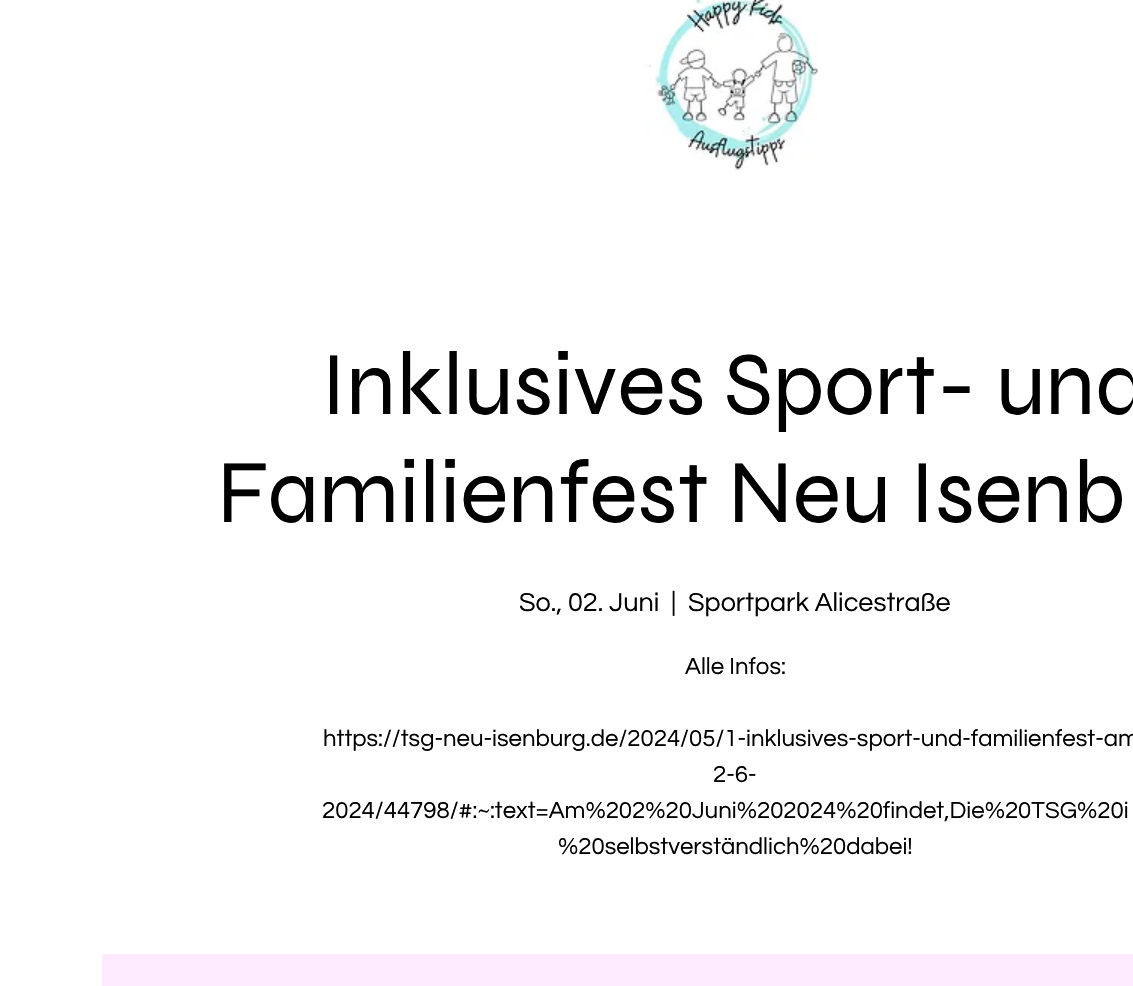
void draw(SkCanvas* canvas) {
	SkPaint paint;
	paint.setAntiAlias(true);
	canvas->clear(0xffffffff);
	canvas->drawImageRect(SkImages::DeferredFromEncodedData(SkData::MakeFromFileName("img1.png")), SkRect::MakeXYWH(645, 0, 174, 171), SkSamplingOptions());
	SkFont f1(fontMgr->matchFamilyStyle("Syne", SkFontStyle::Normal()), 90);
	f1.setSubpixel(true);
	paint.setColor(0xff000000);
	canvas->drawString("Inklusives Sport- und", 321, 414, f1, paint);
	canvas->drawString("Familienfest Neu Isenb", 217, 522, f1, paint);
	SkFont f2(fontMgr->matchFamilyStyle("Questrial", SkFontStyle::Normal()), 27);
	f2.setSubpixel(true);
	canvas->drawString("So., 02. Juni", 519, 611, f2, paint);
	canvas->drawString("|", 671, 611, f2, paint);
	canvas->drawString("Sportpark Alicestraße", 688, 611, f2, paint);
	SkFont f3(fontMgr->matchFamilyStyle("Questrial", SkFontStyle::Normal()), 24);
	f3.setSubpixel(true);
	canvas->drawString("Alle Infos:", 685, 674, f3, paint);
	canvas->drawString("https://tsg-neu-isenburg.de/2024/05/1-inklusives-sport-und-familienfest-am", 323, 746, f3, paint);
	canvas->drawString("2-6-", 713, 782, f3, paint);
	canvas->drawString("2024/44798/#:~:text=Am%202%20Juni%202024%20findet,Die%20TSG%20i", 322, 818, f3, paint);
	canvas->drawString("%20selbstverständlich%20dabei!", 558, 854, f3, paint);
	paint.setColor(0xffffebff);
	canvas->drawRect(SkRect::MakeXYWH(102, 954, 1031, 32), paint);
}
